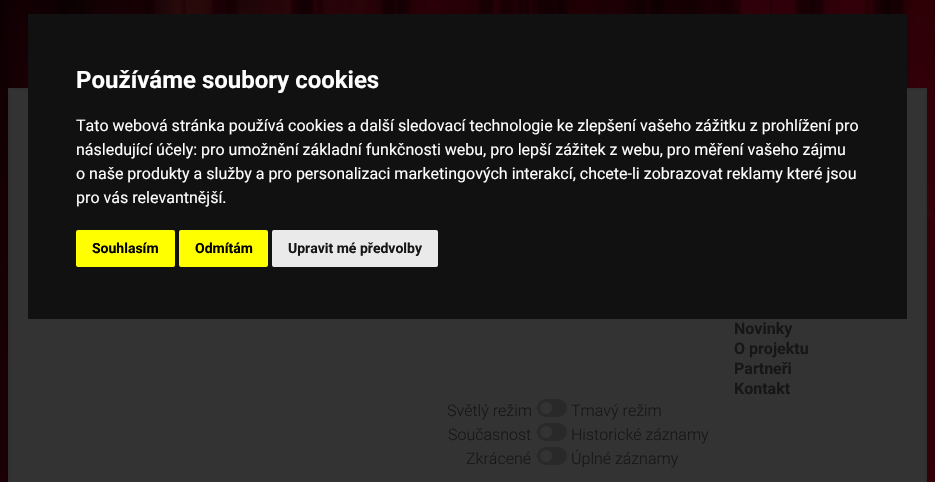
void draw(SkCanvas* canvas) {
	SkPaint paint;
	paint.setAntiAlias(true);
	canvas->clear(0xffffffff);
	canvas->drawImageRect(SkImages::DeferredFromEncodedData(SkData::MakeFromFileName("img1.png")), SkRect::MakeXYWH(0, 0, 935, 482), SkSamplingOptions());
	paint.setColor(0xff333333);
	canvas->drawRect(SkRect::MakeXYWH(9, 89, 917, 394), paint);
	paint.setStroke(true);
	paint.setStrokeWidth(2);
	paint.setColor(0xff303030);
	canvas->drawRect(SkRect::MakeXYWH(9, 89, 917, 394), paint);
	paint.setStroke(false);
	paint.setColor(0xff111111);
	canvas->drawRect(SkRect::MakeXYWH(28, 14, 879, 305), paint);
	SkFont f1(fontMgr->matchFamilyStyle("Roboto", SkFontStyle::Bold()), 24);
	f1.setSubpixel(true);
	paint.setColor(0xffffffff);
	canvas->drawString("Používáme soubory cookies", 76, 88, f1, paint);
	SkFont f2(fontMgr->matchFamilyStyle("Roboto", SkFontStyle::Normal()), 16);
	f2.setSubpixel(true);
	canvas->drawString("Tato webová stránka používá cookies a další sledovací technologie ke zlepšení vašeho zážitku z prohlížení pro", 76, 131, f2, paint);
	canvas->drawString("následující účely: pro umožnění základní funkčnosti webu, pro lepší zážitek z webu, pro měření vašeho zájmu", 76, 155, f2, paint);
	canvas->drawString("o naše produkty a služby a pro personalizaci marketingových interakcí, chcete-li zobrazovat reklamy které jsou", 76, 179, f2, paint);
	canvas->drawString("pro vás relevantnější.", 76, 203, f2, paint);
	paint.setColor(0xffffff00);
	canvas->drawRoundRect(SkRect::MakeXYWH(76, 230, 99, 37), 2, 2, paint);
	SkFont f3(fontMgr->matchFamilyStyle("Roboto", SkFontStyle::Bold()), 14);
	f3.setSubpixel(true);
	paint.setColor(0xff000000);
	canvas->drawString("Souhlasím", 92, 253, f3, paint);
	paint.setColor(0xffffff00);
	canvas->drawRoundRect(SkRect::MakeXYWH(179, 230, 89, 37), 2, 2, paint);
	paint.setColor(0xff000000);
	canvas->drawString("Odmítám", 195, 253, f3, paint);
	paint.setColor(0xffeaeaea);
	canvas->drawRoundRect(SkRect::MakeXYWH(272, 230, 166, 37), 2, 2, paint);
	paint.setColor(0xff161616);
	canvas->drawString("Upravit mé předvolby", 288, 253, f3, paint);
	SkFont f4(fontMgr->matchFamilyStyle("Roboto", SkFontStyle::Bold()), 16);
	f4.setSubpixel(true);
	canvas->drawString("Novinky", 734, 334, f4, paint);
	canvas->drawString("O projektu", 734, 354, f4, paint);
	canvas->drawString("Partneři", 734, 374, f4, paint);
	canvas->drawString("Kontakt", 734, 394, f4, paint);
	SkFont f5(fontMgr->matchFamilyStyle("Roboto", SkFontStyle(300, SkFontStyle::kNormal_Width, SkFontStyle::kUpright_Slant)), 16);
	f5.setSubpixel(true);
	canvas->drawString("Světlý režim", 447, 416, f5, paint);
	paint.setColor(0xff292929);
	canvas->drawRoundRect(SkRect::MakeXYWH(537, 399, 30, 18), 9, 9, paint);
	paint.setColor(0xff333333);
	canvas->drawCircle(546, 408, 6, paint);
	paint.setColor(0xff161616);
	canvas->drawString("Tmavý režim", 571, 416, f5, paint);
	canvas->drawString("Současnost", 448, 440, f5, paint);
	paint.setColor(0xff292929);
	canvas->drawRoundRect(SkRect::MakeXYWH(537, 423, 30, 18), 9, 9, paint);
	paint.setColor(0xff333333);
	canvas->drawCircle(546, 432, 6, paint);
	paint.setColor(0xff161616);
	canvas->drawString("Historické záznamy", 571, 440, f5, paint);
	canvas->drawString("Zkrácené", 466, 464, f5, paint);
	paint.setColor(0xff292929);
	canvas->drawRoundRect(SkRect::MakeXYWH(537, 447, 30, 18), 9, 9, paint);
	paint.setColor(0xff333333);
	canvas->drawCircle(546, 456, 6, paint);
	paint.setColor(0xff161616);
	canvas->drawString("Úplné záznamy", 571, 464, f5, paint);
}
